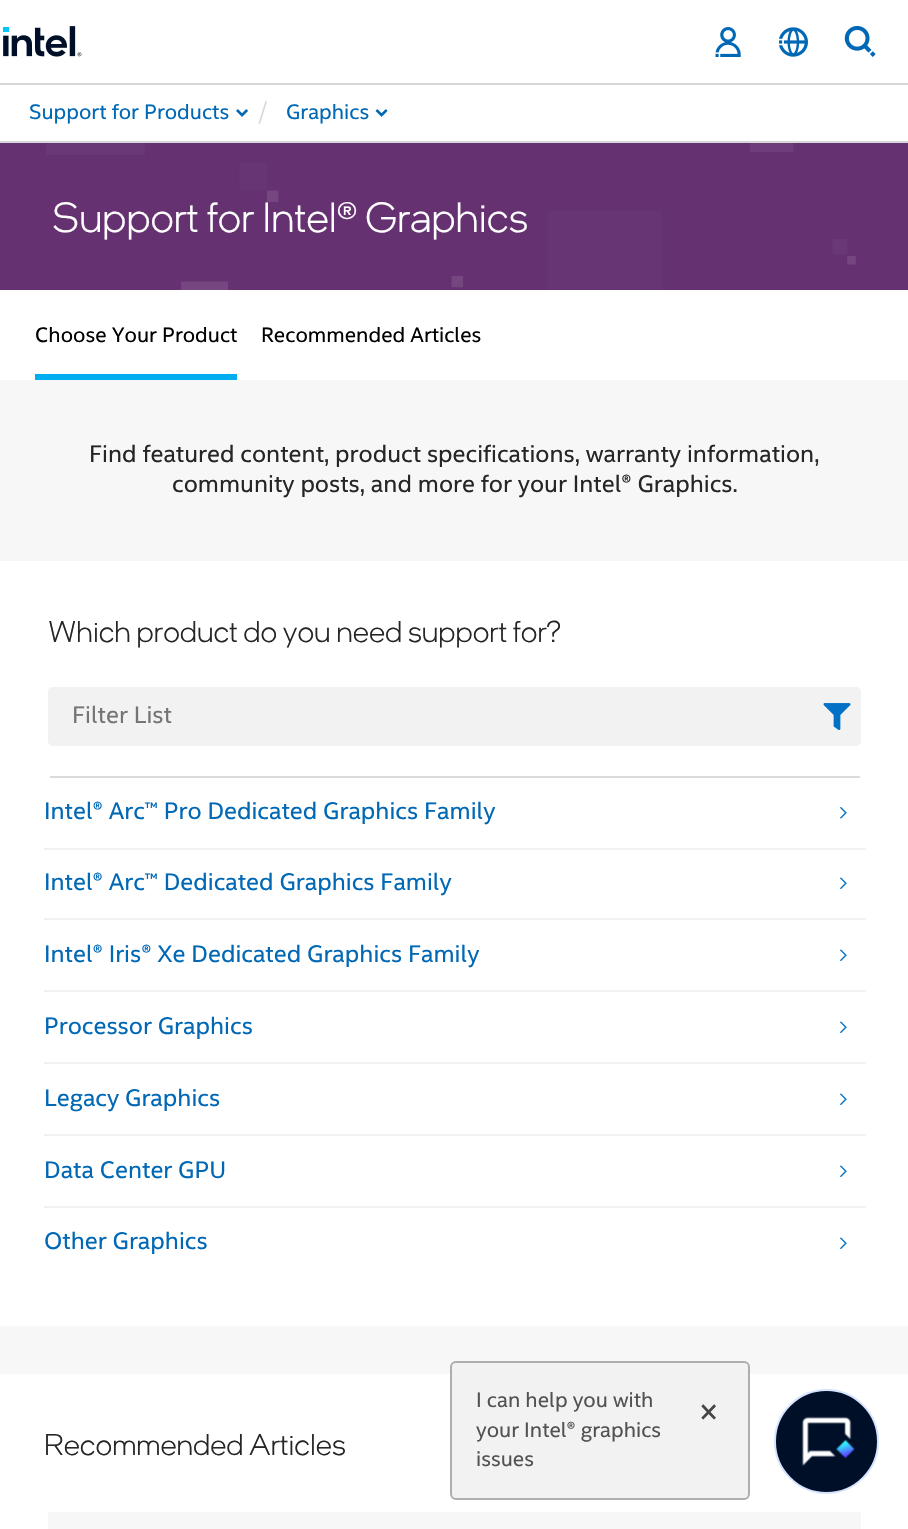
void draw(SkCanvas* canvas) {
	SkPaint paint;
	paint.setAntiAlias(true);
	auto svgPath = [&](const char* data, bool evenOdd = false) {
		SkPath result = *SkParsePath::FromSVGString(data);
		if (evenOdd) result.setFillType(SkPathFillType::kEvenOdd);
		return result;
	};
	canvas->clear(0xffffffff);
	paint.setColor(0xffd7d7d7);
	canvas->drawRect(SkRect::MakeXYWH(0, 83, 908, 2), paint);
	canvas->drawImageRect(SkImages::DeferredFromEncodedData(SkData::MakeFromFileName("img1.png")), SkRect::MakeXYWH(3, 26, 79, 31), SkSamplingOptions());
	canvas->drawImageRect(SkImages::DeferredFromEncodedData(SkData::MakeFromFileName("img2.png")), SkRect::MakeXYWH(715, 27, 26, 30), SkSamplingOptions());
	canvas->drawImageRect(SkImages::DeferredFromEncodedData(SkData::MakeFromFileName("img3.png")), SkRect::MakeXYWH(779, 27, 29, 30), SkSamplingOptions());
	canvas->drawImageRect(SkImages::DeferredFromEncodedData(SkData::MakeFromFileName("img4.png")), SkRect::MakeXYWH(844, 25, 32, 32), SkSamplingOptions());
	canvas->drawRect(SkRect::MakeXYWH(0, 141, 908, 2), paint);
	SkFont f1(fontMgr->matchFamilyStyle("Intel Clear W", SkFontStyle::Normal()), 21);
	f1.setSubpixel(true);
	paint.setColor(0xff0068b5);
	canvas->drawString("Support for Products", 29, 119, f1, paint);
	canvas->drawImageRect(SkImages::DeferredFromEncodedData(SkData::MakeFromFileName("img5.png")), SkRect::MakeXYWH(236, 109, 12, 8), SkSamplingOptions());
	paint.setColor(0xffd7d7d7);
	canvas->drawPath(svgPath("M265.5 101L267 101.5L260 124L258.5 123.5Z"), paint);
	paint.setColor(0xff0068b5);
	canvas->drawString("Graphics", 286, 119, f1, paint);
	canvas->drawImageRect(SkImages::DeferredFromEncodedData(SkData::MakeFromFileName("img6.png")), SkRect::MakeXYWH(375, 109, 13, 8), SkSamplingOptions());
	paint.setColor(0xfff7f7f7);
	canvas->drawRect(SkRect::MakeXYWH(0, 380, 908, 994), paint);
	paint.setColor(0xff653171);
	canvas->drawRect(SkRect::MakeXYWH(0, 143, 908, 147), paint);
	canvas->drawImageRect(SkImages::DeferredFromEncodedData(SkData::MakeFromFileName("img7.png")), SkRect::MakeXYWH(46, 143, 810, 147), SkSamplingOptions());
	SkFont f2(fontMgr->matchFamilyStyle("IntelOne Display", SkFontStyle(300, SkFontStyle::kNormal_Width, SkFontStyle::kUpright_Slant)), 42);
	f2.setSubpixel(true);
	paint.setColor(0xffffffff);
	canvas->drawString("Support for Intel® Graphics", 52, 232, f2, paint);
	paint.setColor(0xff00aeef);
	canvas->drawRect(SkRect::MakeXYWH(35, 374, 202, 6), paint);
	paint.setColor(0xff000000);
	canvas->drawString("Choose Your Product", 35, 342, f1, paint);
	canvas->drawString("Recommended Articles", 261, 342, f1, paint);
	SkFont f3(fontMgr->matchFamilyStyle("Intel Clear W", SkFontStyle::Normal()), 24);
	f3.setSubpixel(true);
	paint.setColor(0xff262626);
	canvas->drawString("Find featured content, product specifications, warranty information,", 89, 462, f3, paint);
	canvas->drawString("community posts, and more for your Intel® Graphics.", 172, 492, f3, paint);
	paint.setColor(0xffffffff);
	canvas->drawRect(SkRect::MakeXYWH(0, 561, 908, 765), paint);
	SkFont f4(fontMgr->matchFamilyStyle("IntelOne Display", SkFontStyle(300, SkFontStyle::kNormal_Width, SkFontStyle::kUpright_Slant)), 30);
	f4.setSubpixel(true);
	paint.setColor(0xff262626);
	canvas->drawString("Which product do you need support for?", 48, 642, f4, paint);
	paint.setColor(0xfff2f2f2);
	canvas->drawRoundRect(SkRect::MakeXYWH(48, 687, 813, 59), 5, 5, paint);
	paint.setColor(0xff757575);
	canvas->drawString("Filter List", 72, 723, f3, paint);
	canvas->drawImageRect(SkImages::DeferredFromEncodedData(SkData::MakeFromFileName("img8.png")), SkRect::MakeXYWH(823, 703, 28, 27), SkSamplingOptions());
	paint.setColor(0xffdbdbdb);
	canvas->drawRect(SkRect::MakeXYWH(50, 776, 810, 2), paint);
	paint.setColor(0xff0068b5);
	canvas->drawString("Intel® Arc™ Pro Dedicated Graphics Family", 44, 819, f3, paint);
	canvas->drawImageRect(SkImages::DeferredFromEncodedData(SkData::MakeFromFileName("img9.png")), SkRect::MakeXYWH(840, 807, 7, 12), SkSamplingOptions());
	paint.setColor(0xfff2f2f2);
	canvas->drawRect(SkRect::MakeXYWH(44, 848, 822, 2), paint);
	paint.setColor(0xff0068b5);
	canvas->drawString("Intel® Arc™ Dedicated Graphics Family", 44, 890, f3, paint);
	canvas->drawImageRect(SkImages::DeferredFromEncodedData(SkData::MakeFromFileName("img10.png")), SkRect::MakeXYWH(840, 877, 7, 13), SkSamplingOptions());
	paint.setColor(0xfff2f2f2);
	canvas->drawRect(SkRect::MakeXYWH(44, 918, 822, 2), paint);
	paint.setColor(0xff0068b5);
	canvas->drawString("Intel® Iris® Xe Dedicated Graphics Family", 44, 962, f3, paint);
	canvas->drawImageRect(SkImages::DeferredFromEncodedData(SkData::MakeFromFileName("img10.png")), SkRect::MakeXYWH(840, 949, 7, 13), SkSamplingOptions());
	paint.setColor(0xfff2f2f2);
	canvas->drawRect(SkRect::MakeXYWH(44, 990, 822, 2), paint);
	paint.setColor(0xff0068b5);
	canvas->drawString("Processor Graphics", 44, 1034, f3, paint);
	canvas->drawImageRect(SkImages::DeferredFromEncodedData(SkData::MakeFromFileName("img10.png")), SkRect::MakeXYWH(840, 1021, 7, 13), SkSamplingOptions());
	paint.setColor(0xfff2f2f2);
	canvas->drawRect(SkRect::MakeXYWH(44, 1062, 822, 2), paint);
	paint.setColor(0xff0068b5);
	canvas->drawString("Legacy Graphics", 44, 1106, f3, paint);
	canvas->drawImageRect(SkImages::DeferredFromEncodedData(SkData::MakeFromFileName("img10.png")), SkRect::MakeXYWH(840, 1093, 7, 13), SkSamplingOptions());
	paint.setColor(0xfff2f2f2);
	canvas->drawRect(SkRect::MakeXYWH(44, 1134, 822, 2), paint);
	paint.setColor(0xff0068b5);
	canvas->drawString("Data Center GPU", 44, 1178, f3, paint);
	canvas->drawImageRect(SkImages::DeferredFromEncodedData(SkData::MakeFromFileName("img10.png")), SkRect::MakeXYWH(840, 1165, 7, 13), SkSamplingOptions());
	paint.setColor(0xfff2f2f2);
	canvas->drawRect(SkRect::MakeXYWH(44, 1206, 822, 2), paint);
	paint.setColor(0xff0068b5);
	canvas->drawString("Other Graphics", 44, 1249, f3, paint);
	canvas->drawImageRect(SkImages::DeferredFromEncodedData(SkData::MakeFromFileName("img10.png")), SkRect::MakeXYWH(840, 1237, 7, 13), SkSamplingOptions());
	paint.setColor(0xff262626);
	canvas->drawString("Recommended Articles", 44, 1455, f4, paint);
	paint.setColor(0xfff7f7f7);
	canvas->drawRect(SkRect::MakeXYWH(48, 1512, 813, 17), paint);
	paint.setColor(0xfff2f2f2);
	canvas->drawRoundRect(SkRect::MakeXYWH(451, 1362, 298, 137), 5, 5, paint);
	paint.setStroke(true);
	paint.setStrokeWidth(2);
	paint.setColor(0xffaeaeae);
	canvas->drawRoundRect(SkRect::MakeXYWH(451, 1362, 298, 137), 5, 5, paint);
	paint.setStroke(false);
	paint.setColor(0xff525252);
	canvas->drawString("I can help you with", 476, 1407, f1, paint);
	canvas->drawString("your Intel® graphics", 476, 1437, f1, paint);
	canvas->drawString("issues", 476, 1466, f1, paint);
	SkFont f5(fontMgr->matchFamilyStyle("Intel Clear W", SkFontStyle::Normal()), 36);
	f5.setSubpixel(true);
	paint.setColor(0xff464646);
	canvas->drawString("×", 698, 1424, f5, paint);
	paint.setColor(0xff000f28);
	canvas->drawCircle(826.5, 1441.5, 51.5, paint);
	paint.setStroke(true);
	paint.setColor(0xffd5e3ff);
	canvas->drawCircle(826.5, 1441.5, 51.5, paint);
	canvas->drawImageRect(SkImages::DeferredFromEncodedData(SkData::MakeFromFileName("img11.png")), SkRect::MakeXYWH(801, 1416, 54, 50), SkSamplingOptions());
}
